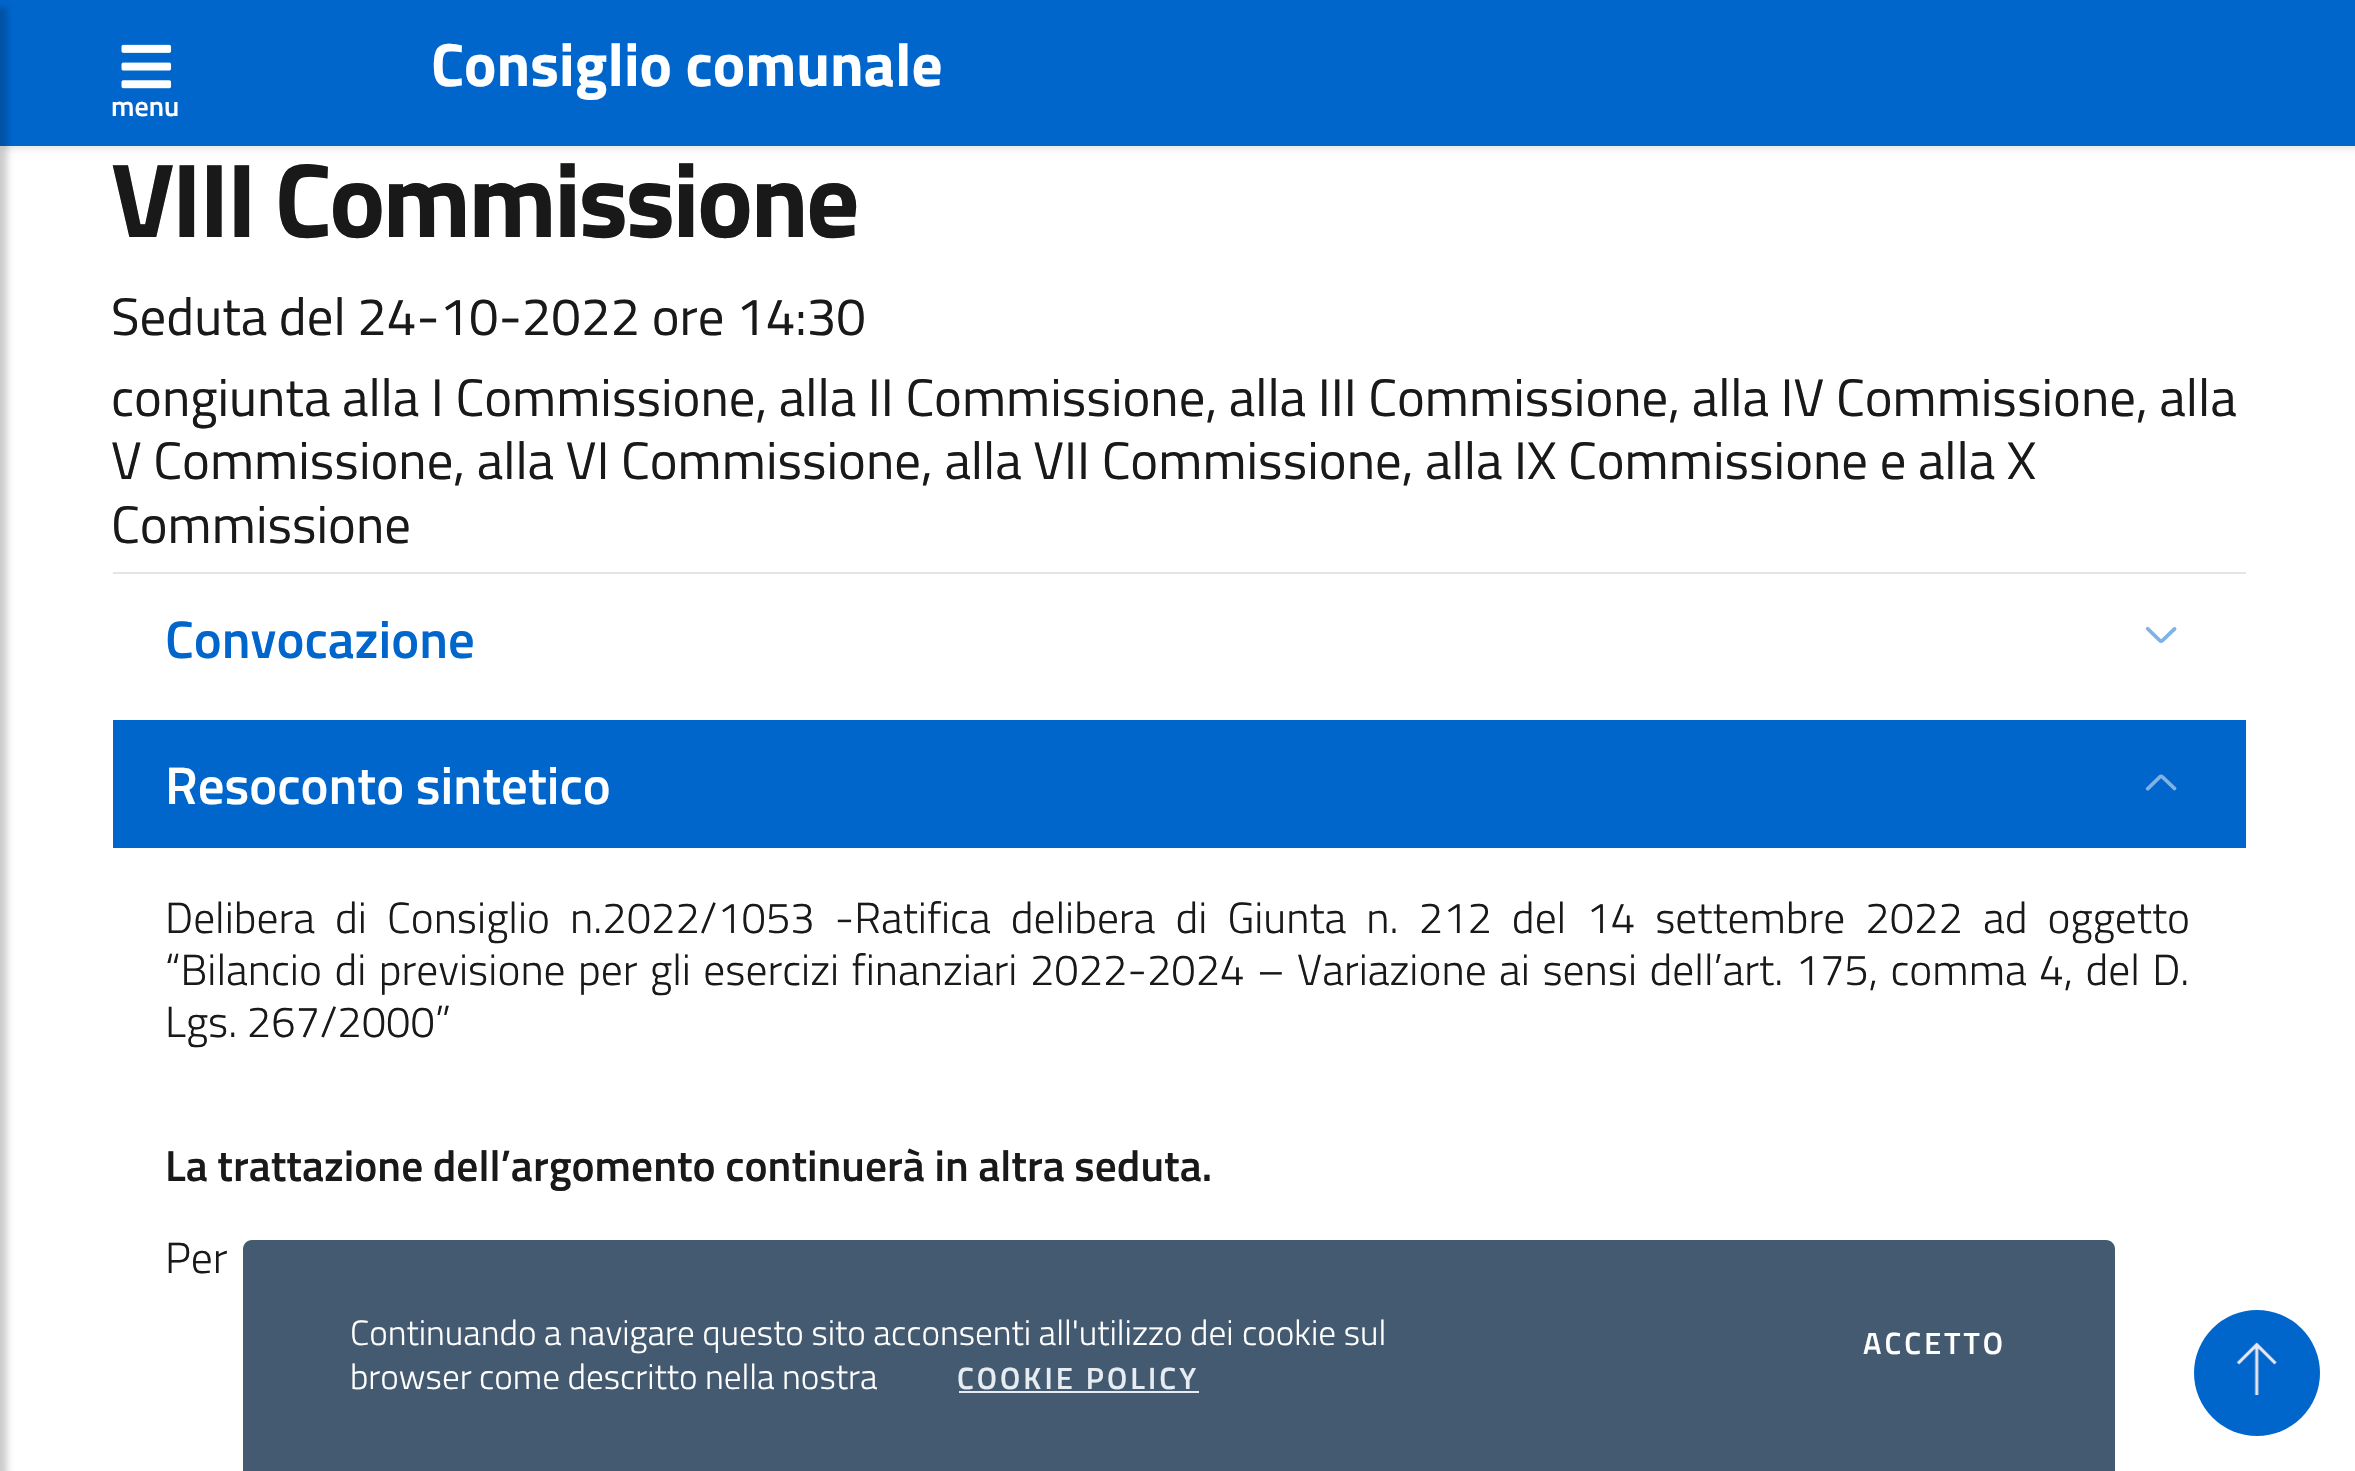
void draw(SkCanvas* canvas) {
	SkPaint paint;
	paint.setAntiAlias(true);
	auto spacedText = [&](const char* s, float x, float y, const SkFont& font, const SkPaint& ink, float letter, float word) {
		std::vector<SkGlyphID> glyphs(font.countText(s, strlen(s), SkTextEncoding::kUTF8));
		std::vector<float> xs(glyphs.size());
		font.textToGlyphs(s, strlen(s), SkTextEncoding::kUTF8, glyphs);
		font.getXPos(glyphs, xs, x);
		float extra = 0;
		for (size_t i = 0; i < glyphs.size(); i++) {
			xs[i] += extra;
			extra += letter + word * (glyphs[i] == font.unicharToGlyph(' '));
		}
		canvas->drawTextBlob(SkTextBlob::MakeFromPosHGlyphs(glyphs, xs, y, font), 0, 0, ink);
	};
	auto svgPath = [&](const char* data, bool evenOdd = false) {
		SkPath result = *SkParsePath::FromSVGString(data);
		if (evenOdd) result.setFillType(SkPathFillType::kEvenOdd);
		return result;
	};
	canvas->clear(0xffffffff);
	paint.setColor(0x1a000000);
	paint.setMaskFilter(SkMaskFilter::MakeBlur(kNormal_SkBlurStyle, 3.5));
	canvas->drawRect(SkRect::MakeXYWH(2, 2, 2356, 147), paint);
	paint.setMaskFilter(nullptr);
	paint.setColor(0xff0066cc);
	canvas->drawRect(SkRect::MakeXYWH(0, 0, 2355, 146), paint);
	paint.setColor(0x33000000);
	paint.setMaskFilter(SkMaskFilter::MakeBlur(kNormal_SkBlurStyle, 3.5));
	canvas->drawRect(SkRect::MakeXYWH(-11, 7, 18, 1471), paint);
	paint.setMaskFilter(nullptr);
	SkFont f1(fontMgr->matchFamilyStyle("Titillium Web", SkFontStyle::Bold()), 61);
	f1.setSubpixel(true);
	paint.setColor(0xffffffff);
	canvas->drawString("Consiglio comunale", 431, 86, f1, paint);
	canvas->drawImageRect(SkImages::DeferredFromEncodedData(SkData::MakeFromFileName("img1.png")), SkRect::MakeXYWH(121, 44, 51, 45), SkSamplingOptions());
	SkFont f2(fontMgr->matchFamilyStyle("Titillium Web", SkFontStyle(600, SkFontStyle::kNormal_Width, SkFontStyle::kUpright_Slant)), 28);
	f2.setSubpixel(true);
	canvas->drawString("menu", 111, 116, f2, paint);
	SkFont f3(fontMgr->matchFamilyStyle("Titillium Web", SkFontStyle::Bold()), 105.5);
	f3.setSubpixel(true);
	paint.setColor(0xff19191a);
	spacedText("VIII Commissione", 111, 237, f3, paint, -2.75, 0);
	SkFont f4(fontMgr->matchFamilyStyle("Titillium Web", SkFontStyle::Normal()), 52.8);
	f4.setSubpixel(true);
	canvas->drawString("Seduta del 24-10-2022 ore 14:30", 111, 335, f4, paint);
	canvas->drawString("congiunta alla I Commissione, alla II Commissione, alla III Commissione, alla IV Commissione, alla", 111, 416, f4, paint);
	canvas->drawString("V Commissione, alla VI Commissione, alla VII Commissione, alla IX Commissione e alla X", 111, 479, f4, paint);
	canvas->drawString("Commissione", 111, 543, f4, paint);
	paint.setColor(0xffe3e4e6);
	canvas->drawRect(SkRect::MakeXYWH(113, 572, 2133, 2), paint);
	SkFont f5(fontMgr->matchFamilyStyle("Titillium Web", SkFontStyle(600, SkFontStyle::kNormal_Width, SkFontStyle::kUpright_Slant)), 52.8);
	f5.setSubpixel(true);
	paint.setColor(0xff0066cc);
	canvas->drawString("Convocazione", 165, 658, f5, paint);
	canvas->drawImageRect(SkImages::DeferredFromEncodedData(SkData::MakeFromFileName("img2.png")), SkRect::MakeXYWH(2145, 626, 32, 17), SkSamplingOptions());
	canvas->drawRect(SkRect::MakeXYWH(113, 720, 2133, 128), paint);
	paint.setColor(0xffffffff);
	canvas->drawString("Resoconto sintetico", 165, 804, f5, paint);
	canvas->drawImageRect(SkImages::DeferredFromEncodedData(SkData::MakeFromFileName("img3.png")), SkRect::MakeXYWH(2145, 774, 32, 17), SkSamplingOptions());
	SkFont f6(fontMgr->matchFamilyStyle("Titillium Web", SkFontStyle(300, SkFontStyle::kNormal_Width, SkFontStyle::kUpright_Slant)), 43.55);
	f6.setSubpixel(true);
	paint.setColor(0xff19191a);
	spacedText("Delibera di Consiglio n.2022/1053 -Ratifica delibera di Giunta n. 212 del 14 settembre 2022 ad oggetto", 165, 933, f6, paint, 0, 10.5);
	spacedText("“Bilancio di previsione per gli esercizi finanziari 2022-2024 – Variazione ai sensi dell’art. 175, comma 4, del D.", 165, 985, f6, paint, 0, 2.9);
	canvas->drawString("Lgs. 267/2000”", 165, 1037, f6, paint);
	SkFont f7(fontMgr->matchFamilyStyle("Titillium Web", SkFontStyle(600, SkFontStyle::kNormal_Width, SkFontStyle::kUpright_Slant)), 43.55);
	f7.setSubpixel(true);
	canvas->drawString("La trattazione dell’argomento continuerà in altra seduta.", 165, 1181, f7, paint);
	canvas->drawString("Per", 165, 1273, f6, paint);
	paint.setColor(0xff435a70);
	canvas->drawPath(svgPath("M252 1240H2106C2111 1240 2115 1244 2115 1249V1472H243V1249C243 1244 247 1240 252 1240Z"), paint);
	SkFont f8(fontMgr->matchFamilyStyle("Titillium Web", SkFontStyle(300, SkFontStyle::kNormal_Width, SkFontStyle::kUpright_Slant)), 35.2);
	f8.setSubpixel(true);
	paint.setColor(0xffffffff);
	spacedText("Continuando a navigare questo sito acconsenti all'utilizzo dei", 350, 1345, f8, paint, 0, -0.25);
	canvas->drawString("cookie sul", 1242, 1345, f8, paint);
	spacedText("browser come descritto nella nostra", 350, 1389, f8, paint, 0, -0.25);
	SkFont f9(fontMgr->matchFamilyStyle("Titillium Web", SkFontStyle(600, SkFontStyle::kNormal_Width, SkFontStyle::kUpright_Slant)), 30.75);
	f9.setSubpixel(true);
	paint.setColor(0xffe6ecf2);
	spacedText("COOKIE POLICY", 957, 1389, f9, paint, 3.1, 0);
	canvas->drawRect(SkRect::MakeXYWH(959, 1391, 240, 2), paint);
	paint.setColor(0xffffffff);
	spacedText("ACCETTO", 1863, 1354, f9, paint, 3.1, 0);
	paint.setColor(0xff0066cc);
	canvas->drawCircle(2257, 1373, 63, paint);
	canvas->drawImageRect(SkImages::DeferredFromEncodedData(SkData::MakeFromFileName("img4.png")), SkRect::MakeXYWH(2236, 1342, 41, 53), SkSamplingOptions());
}
